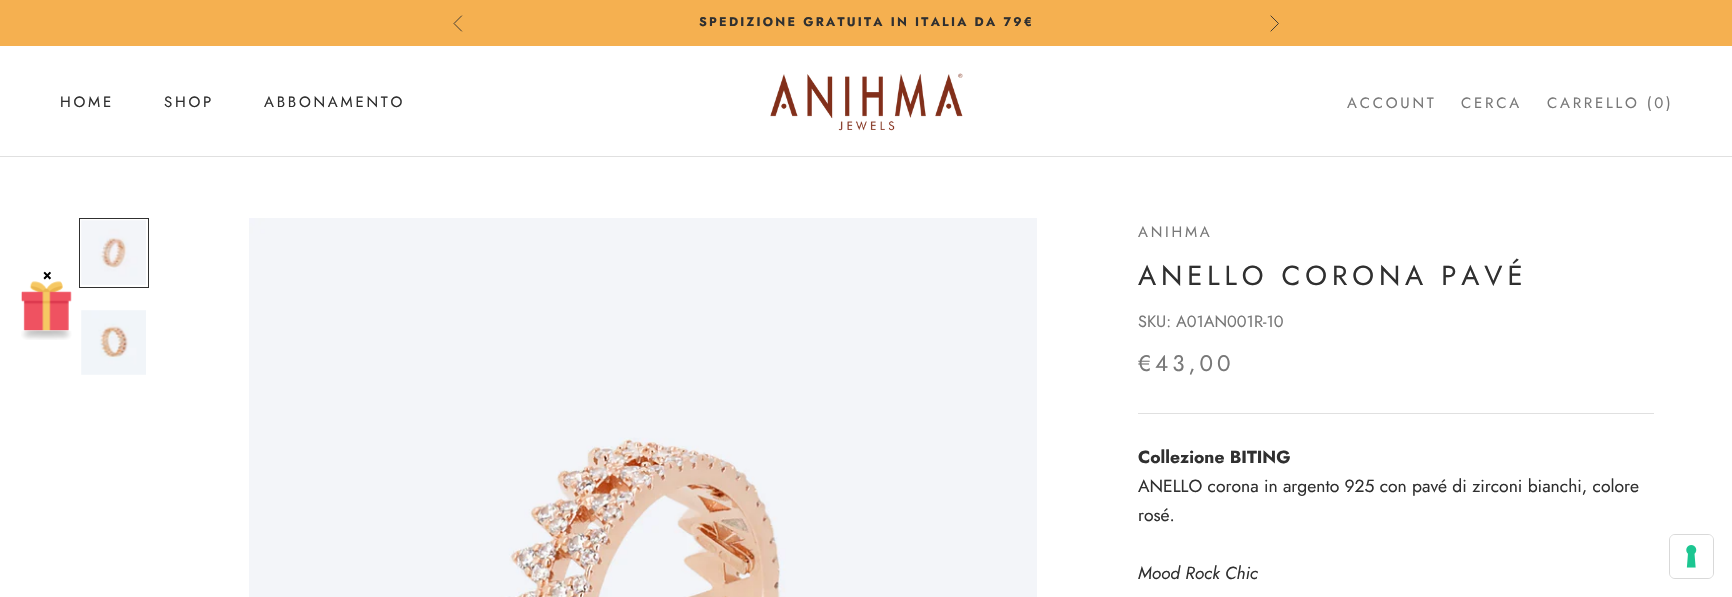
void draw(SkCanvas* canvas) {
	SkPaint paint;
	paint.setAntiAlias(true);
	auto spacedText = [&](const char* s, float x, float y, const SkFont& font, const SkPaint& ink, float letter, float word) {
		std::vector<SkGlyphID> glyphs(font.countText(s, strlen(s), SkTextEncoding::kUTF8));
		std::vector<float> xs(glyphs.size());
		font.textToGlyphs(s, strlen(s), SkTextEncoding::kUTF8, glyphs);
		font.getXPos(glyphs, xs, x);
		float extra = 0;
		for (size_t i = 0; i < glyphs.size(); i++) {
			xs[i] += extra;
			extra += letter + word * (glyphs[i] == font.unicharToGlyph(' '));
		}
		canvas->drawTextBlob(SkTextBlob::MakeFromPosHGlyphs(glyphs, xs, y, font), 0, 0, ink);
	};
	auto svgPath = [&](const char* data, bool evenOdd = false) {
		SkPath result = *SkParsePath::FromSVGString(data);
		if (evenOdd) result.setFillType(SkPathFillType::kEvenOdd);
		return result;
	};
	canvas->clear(0xffffffff);
	paint.setColor(0xfff5b050);
	canvas->drawRect(SkRect::MakeXYWH(0, 0, 1732, 46), paint);
	paint.setStroke(true);
	paint.setStrokeWidth(0.9);
	paint.setStrokeCap(SkPaint::kSquare_Cap);
	paint.setColor(0xff303030);
	canvas->drawPath(svgPath("M461.5 16L454 23.5L461.5 31"), paint);
	SkFont f1(fontMgr->matchFamilyStyle("Jost", SkFontStyle::Bold()), 12.5);
	f1.setSubpixel(true);
	paint.setStroke(false);
	spacedText("SPEDIZIONE GRATUITA IN ITALIA DA 79€", 699, 26, f1, paint, 2.25, 0);
	paint.setStroke(true);
	canvas->drawPath(svgPath("M1271 31L1278.5 23.5L1271 16"), paint);
	paint.setStroke(false);
	paint.setColor(0xffe0e0e0);
	canvas->drawRect(SkRect::MakeXYWH(0, 156, 1732, 1), paint);
	SkFont f2(fontMgr->matchFamilyStyle("Jost", SkFontStyle::Normal()), 15);
	f2.setSubpixel(true);
	paint.setColor(0xff303030);
	spacedText("HOME", 60, 107, f2, paint, 2.75, 0);
	spacedText("SHOP", 164, 107, f2, paint, 2.75, 0);
	spacedText("ABBONAMENTO", 264, 107, f2, paint, 2.75, 0);
	canvas->drawImageRect(SkImages::DeferredFromEncodedData(SkData::MakeFromFileName("img1.png")), SkRect::MakeXYWH(770, 73, 193, 58), SkSamplingOptions());
	paint.setColor(0xff787878);
	spacedText("ACCOUNT", 1347, 108, f2, paint, 2.75, 0);
	spacedText("CERCA", 1461, 108, f2, paint, 2.75, 0);
	spacedText("CARRELLO (0)", 1547, 108, f2, paint, 2.75, 0);
	canvas->drawImageRect(SkImages::DeferredFromEncodedData(SkData::MakeFromFileName("img2.png")), SkRect::MakeXYWH(21, 281, 51, 59), SkSamplingOptions());
	SkFont f3(fontMgr->matchFamilyStyle("Roboto", SkFontStyle::Bold()), 16.25);
	f3.setSubpixel(true);
	paint.setColor(0xff000000);
	canvas->drawString("×", 43, 281, f3, paint);
	paint.setStroke(true);
	paint.setStrokeWidth(1);
	paint.setStrokeCap(SkPaint::kButt_Cap);
	paint.setColor(0xff303030);
	canvas->drawRect(SkRect::MakeXYWH(79.5, 218.5, 69, 69), paint);
	canvas->drawImageRect(SkImages::DeferredFromEncodedData(SkData::MakeFromFileName("img3.png")), SkRect::MakeXYWH(81, 220, 65, 65), SkSamplingOptions());
	canvas->drawImageRect(SkImages::DeferredFromEncodedData(SkData::MakeFromFileName("img4.png")), SkRect::MakeXYWH(81, 310, 65, 65), SkSamplingOptions());
	canvas->drawImageRect(SkImages::DeferredFromEncodedData(SkData::MakeFromFileName("img5.png")), SkRect::MakeXYWH(249, 218, 788, 379), SkSamplingOptions());
	paint.setStroke(false);
	paint.setColor(0xff787878);
	spacedText("ANIHMA", 1138, 237, f2, paint, 2.75, 0);
	SkFont f4(fontMgr->matchFamilyStyle("Jost", SkFontStyle::Normal()), 27.5);
	f4.setSubpixel(true);
	paint.setColor(0xff303030);
	spacedText("ANELLO CORONA PAVÉ", 1138, 285, f4, paint, 4.9, 0);
	SkFont f5(fontMgr->matchFamilyStyle("Jost", SkFontStyle::Normal()), 16.25);
	f5.setSubpixel(true);
	paint.setColor(0xff787878);
	canvas->drawString("SKU: A01AN001R-10", 1138, 327, f5, paint);
	SkFont f6(fontMgr->matchFamilyStyle("Jost", SkFontStyle::Normal()), 22.5);
	f6.setSubpixel(true);
	spacedText("€43,00", 1138, 371, f6, paint, 4, 0);
	paint.setColor(0xffe0e0e0);
	canvas->drawRect(SkRect::MakeXYWH(1138, 413, 516, 1), paint);
	SkFont f7(fontMgr->matchFamilyStyle("Jost", SkFontStyle::Bold()), 17.5);
	f7.setSubpixel(true);
	paint.setColor(0xff303030);
	canvas->drawString("Collezione BITING", 1138, 463, f7, paint);
	SkFont f8(fontMgr->matchFamilyStyle("Jost", SkFontStyle::Normal()), 17.5);
	f8.setSubpixel(true);
	canvas->drawString("ANELLO corona in argento 925 con pavé di zirconi bianchi, colore", 1138, 492, f8, paint);
	canvas->drawString("rosé.", 1138, 521, f8, paint);
	SkFont f9(fontMgr->matchFamilyStyle("Jost", SkFontStyle::Italic()), 17.5);
	f9.setSubpixel(true);
	canvas->drawString("Mood Rock Chic", 1138, 579, f9, paint);
	paint.setStroke(true);
	paint.setColor(0xffd9d9d9);
	canvas->drawRoundRect(SkRect::MakeXYWH(1669.5, 534.5, 44, 44), 5.5, 5.5, paint);
	paint.setStroke(false);
	paint.setColor(0xffffffff);
	canvas->drawRoundRect(SkRect::MakeXYWH(1670, 535, 43, 43), 5, 5, paint);
	canvas->drawImageRect(SkImages::DeferredFromEncodedData(SkData::MakeFromFileName("img6.png")), SkRect::MakeXYWH(1686, 545, 11, 23), SkSamplingOptions());
}
